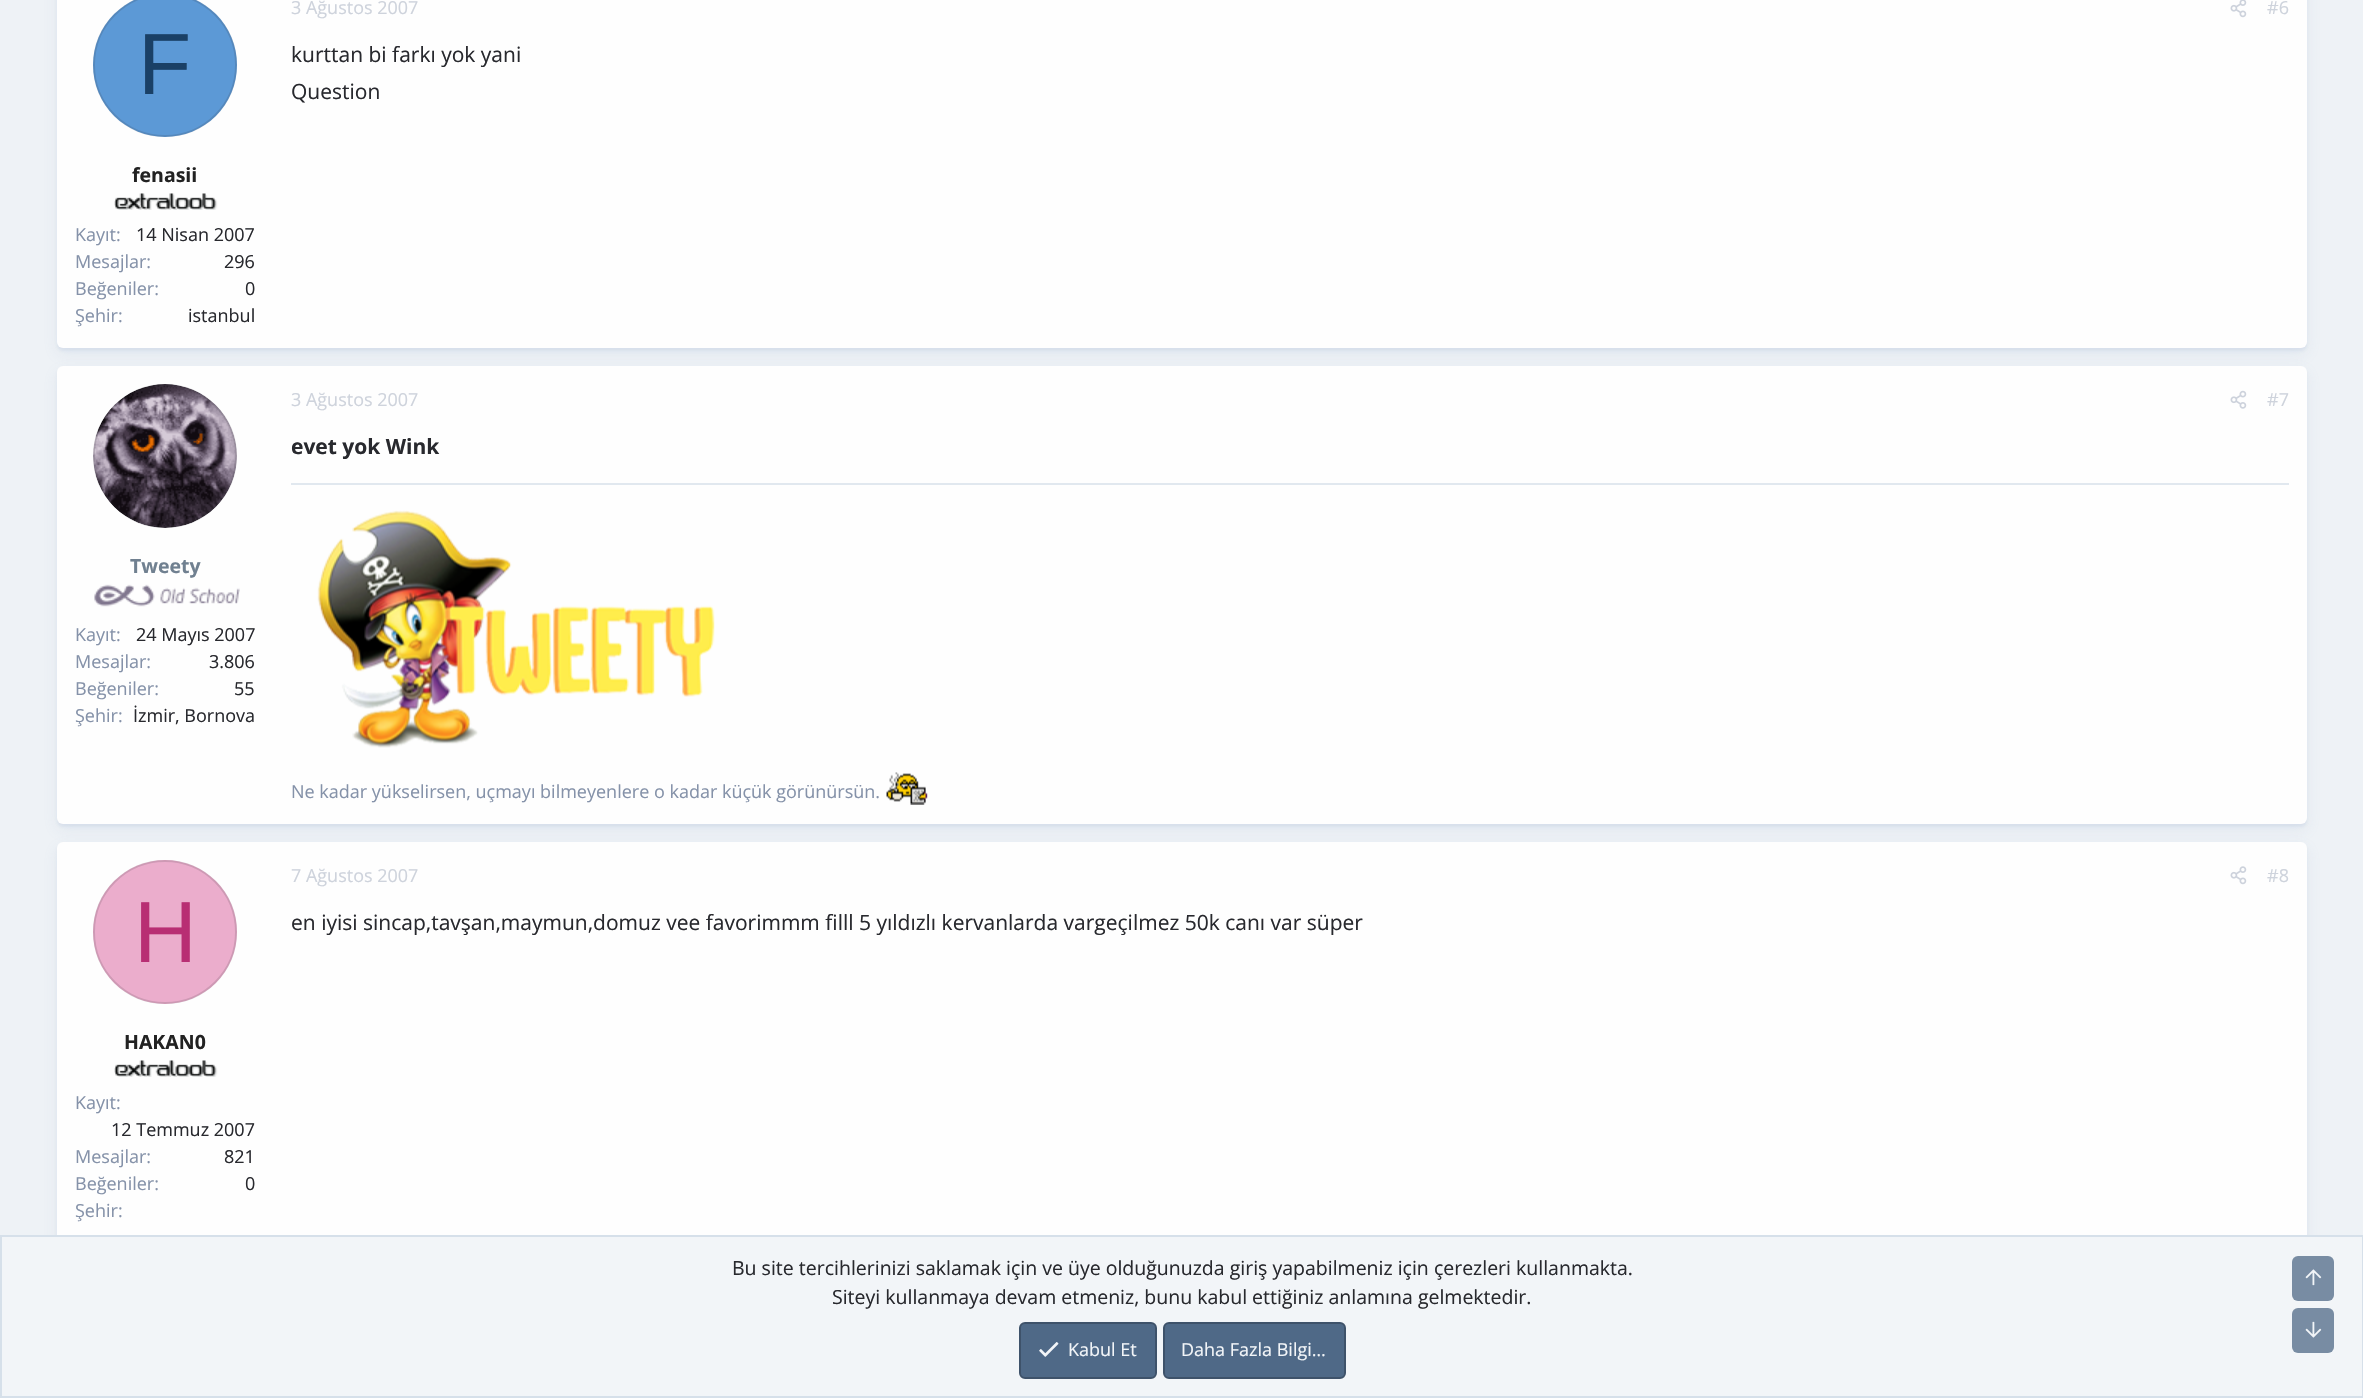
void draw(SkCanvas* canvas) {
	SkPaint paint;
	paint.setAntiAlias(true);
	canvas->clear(0xffeef2f6);
	paint.setColor(0x1f7897ba);
	paint.setMaskFilter(SkMaskFilter::MakeBlur(kNormal_SkBlurStyle, 7.5));
	canvas->drawRoundRect(SkRect::MakeXYWH(57, -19, 2250, 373), 6, 6, paint);
	paint.setMaskFilter(nullptr);
	paint.setMaskFilter(SkMaskFilter::MakeBlur(kNormal_SkBlurStyle, 1.5));
	canvas->drawRoundRect(SkRect::MakeXYWH(57, -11, 2250, 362), 6, 6, paint);
	paint.setMaskFilter(nullptr);
	paint.setColor(0xfffefefe);
	canvas->drawRoundRect(SkRect::MakeXYWH(57, -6, 2250, 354), 6, 6, paint);
	paint.setColor(0xff5c99d6);
	canvas->drawCircle(165, 65, 72, paint);
	SkFont f1(fontMgr->matchFamilyStyle("Liberation Sans", SkFontStyle::Normal()), 87);
	f1.setSubpixel(true);
	paint.setColor(0xff1a4066);
	canvas->drawString("F", 138, 94, f1, paint);
	paint.setStroke(true);
	paint.setStrokeWidth(2);
	paint.setColor(0x2628292e);
	canvas->drawCircle(165, 65, 71, paint);
	SkFont f2(fontMgr->matchFamilyStyle("Open Sans", SkFontStyle::Bold()), 19.5);
	f2.setSubpixel(true);
	paint.setStroke(false);
	paint.setColor(0xff222222);
	canvas->drawString("fenasii", 132, 182, f2, paint);
	canvas->drawImageRect(SkImages::DeferredFromEncodedData(SkData::MakeFromFileName("img1.png")), SkRect::MakeXYWH(114, 193, 104, 17), SkSamplingOptions());
	SkFont f3(fontMgr->matchFamilyStyle("Open Sans", SkFontStyle::Normal()), 18);
	f3.setSubpixel(true);
	paint.setColor(0xff8592a9);
	canvas->drawString("Kayıt:", 75, 241, f3, paint);
	paint.setColor(0xff28292e);
	canvas->drawString("14 Nisan 2007", 136, 241, f3, paint);
	paint.setColor(0xff8592a9);
	canvas->drawString("Mesajlar:", 75, 268, f3, paint);
	paint.setColor(0xff28292e);
	canvas->drawString("296", 224, 268, f3, paint);
	paint.setColor(0xff8592a9);
	canvas->drawString("Beğeniler:", 75, 295, f3, paint);
	paint.setColor(0xff28292e);
	canvas->drawString("0", 245, 295, f3, paint);
	paint.setColor(0xff8592a9);
	canvas->drawString("Şehir:", 75, 322, f3, paint);
	paint.setColor(0xff28292e);
	canvas->drawString("istanbul", 188, 322, f3, paint);
	paint.setColor(0xffced3dc);
	canvas->drawString("3 Ağustos 2007", 291, 14, f3, paint);
	canvas->drawImageRect(SkImages::DeferredFromEncodedData(SkData::MakeFromFileName("img2.png")), SkRect::MakeXYWH(2230, 0, 17, 18), SkSamplingOptions());
	canvas->drawString("#6", 2267, 14, f3, paint);
	SkFont f4(fontMgr->matchFamilyStyle("Open Sans", SkFontStyle::Normal()), 21);
	f4.setSubpixel(true);
	paint.setColor(0xff28292e);
	canvas->drawString("kurttan bi farkı yok yani", 291, 62, f4, paint);
	canvas->drawString("Question", 291, 99, f4, paint);
	paint.setColor(0x1f7897ba);
	paint.setMaskFilter(SkMaskFilter::MakeBlur(kNormal_SkBlurStyle, 7.5));
	canvas->drawRoundRect(SkRect::MakeXYWH(57, 372, 2250, 458), 6, 6, paint);
	paint.setMaskFilter(nullptr);
	paint.setMaskFilter(SkMaskFilter::MakeBlur(kNormal_SkBlurStyle, 1.5));
	canvas->drawRoundRect(SkRect::MakeXYWH(57, 369, 2250, 458), 6, 6, paint);
	paint.setMaskFilter(nullptr);
	paint.setColor(0xfffefefe);
	canvas->drawRoundRect(SkRect::MakeXYWH(57, 366, 2250, 458), 6, 6, paint);
	canvas->drawImageRect(SkImages::DeferredFromEncodedData(SkData::MakeFromFileName("img3.png")), SkRect::MakeXYWH(93, 384, 144, 144), SkSamplingOptions());
	paint.setStroke(true);
	paint.setColor(0x2628292e);
	canvas->drawCircle(165, 456, 71, paint);
	paint.setStroke(false);
	paint.setColor(0xff708090);
	canvas->drawString("Tweety", 130, 573, f2, paint);
	canvas->drawImageRect(SkImages::DeferredFromEncodedData(SkData::MakeFromFileName("img4.png")), SkRect::MakeXYWH(94, 584, 146, 23), SkSamplingOptions());
	paint.setColor(0xff8592a9);
	canvas->drawString("Kayıt:", 75, 641, f3, paint);
	paint.setColor(0xff28292e);
	canvas->drawString("24 Mayıs 2007", 136, 641, f3, paint);
	paint.setColor(0xff8592a9);
	canvas->drawString("Mesajlar:", 75, 668, f3, paint);
	paint.setColor(0xff28292e);
	canvas->drawString("3.806", 209, 668, f3, paint);
	paint.setColor(0xff8592a9);
	canvas->drawString("Beğeniler:", 75, 695, f3, paint);
	paint.setColor(0xff28292e);
	canvas->drawString("55", 234, 695, f3, paint);
	paint.setColor(0xff8592a9);
	canvas->drawString("Şehir:", 75, 722, f3, paint);
	paint.setColor(0xff28292e);
	canvas->drawString("İzmir, Bornova", 133, 722, f3, paint);
	paint.setColor(0xffced3dc);
	canvas->drawString("3 Ağustos 2007", 291, 406, f3, paint);
	canvas->drawImageRect(SkImages::DeferredFromEncodedData(SkData::MakeFromFileName("img5.png")), SkRect::MakeXYWH(2230, 390, 17, 19), SkSamplingOptions());
	canvas->drawString("#7", 2267, 406, f3, paint);
	SkFont f5(fontMgr->matchFamilyStyle("Open Sans", SkFontStyle::Bold()), 21);
	f5.setSubpixel(true);
	paint.setColor(0xff28292e);
	canvas->drawString("evet yok Wink", 291, 454, f5, paint);
	paint.setColor(0xffe1e8ef);
	canvas->drawRect(SkRect::MakeXYWH(291, 483, 1998, 2), paint);
	canvas->drawImageRect(SkImages::DeferredFromEncodedData(SkData::MakeFromFileName("img6.png")), SkRect::MakeXYWH(317, 510, 398, 238), SkSamplingOptions());
	paint.setColor(0xff8592a9);
	canvas->drawString("Ne kadar yükselirsen, uçmayı bilmeyenlere o kadar küçük görünürsün.", 291, 798, f3, paint);
	canvas->drawImageRect(SkImages::DeferredFromEncodedData(SkData::MakeFromFileName("img7.png")), SkRect::MakeXYWH(886, 772, 42, 33), SkSamplingOptions());
	paint.setColor(0x1f7897ba);
	paint.setMaskFilter(SkMaskFilter::MakeBlur(kNormal_SkBlurStyle, 7.5));
	canvas->drawRoundRect(SkRect::MakeXYWH(57, 848, 2250, 427), 6, 6, paint);
	paint.setMaskFilter(nullptr);
	paint.setMaskFilter(SkMaskFilter::MakeBlur(kNormal_SkBlurStyle, 1.5));
	canvas->drawRoundRect(SkRect::MakeXYWH(57, 845, 2250, 427), 6, 6, paint);
	paint.setMaskFilter(nullptr);
	paint.setColor(0xfffefefe);
	canvas->drawRoundRect(SkRect::MakeXYWH(57, 842, 2250, 427), 6, 6, paint);
	paint.setColor(0xffebadcc);
	canvas->drawCircle(165, 932, 72, paint);
	paint.setColor(0xffb82e73);
	canvas->drawString("H", 134, 962, f1, paint);
	paint.setStroke(true);
	paint.setColor(0x2628292e);
	canvas->drawCircle(165, 932, 71, paint);
	paint.setStroke(false);
	paint.setColor(0xff222222);
	canvas->drawString("HAKAN0", 124, 1049, f2, paint);
	canvas->drawImageRect(SkImages::DeferredFromEncodedData(SkData::MakeFromFileName("img8.png")), SkRect::MakeXYWH(114, 1060, 104, 17), SkSamplingOptions());
	paint.setColor(0xff8592a9);
	canvas->drawString("Kayıt:", 75, 1109, f3, paint);
	paint.setColor(0xff28292e);
	canvas->drawString("12 Temmuz 2007", 111, 1136, f3, paint);
	paint.setColor(0xff8592a9);
	canvas->drawString("Mesajlar:", 75, 1163, f3, paint);
	paint.setColor(0xff28292e);
	canvas->drawString("821", 224, 1163, f3, paint);
	paint.setColor(0xff8592a9);
	canvas->drawString("Beğeniler:", 75, 1190, f3, paint);
	paint.setColor(0xff28292e);
	canvas->drawString("0", 245, 1190, f3, paint);
	paint.setColor(0xff8592a9);
	canvas->drawString("Şehir:", 75, 1217, f3, paint);
	paint.setColor(0xffced3dc);
	canvas->drawString("7 Ağustos 2007", 291, 882, f3, paint);
	canvas->drawImageRect(SkImages::DeferredFromEncodedData(SkData::MakeFromFileName("img9.png")), SkRect::MakeXYWH(2230, 866, 17, 19), SkSamplingOptions());
	canvas->drawString("#8", 2267, 882, f3, paint);
	paint.setColor(0xff28292e);
	canvas->drawString("en iyisi sincap,tavşan,maymun,domuz vee favorimmm filll 5 yıldızlı kervanlarda vargeçilmez 50k canı var süper", 291, 930, f4, paint);
	paint.setColor(0xfff2f5f8);
	canvas->drawRect(SkRect::MakeXYWH(1, 1236, 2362, 161), paint);
	paint.setStroke(true);
	paint.setColor(0xffd6e0ea);
	canvas->drawRect(SkRect::MakeXYWH(1, 1236, 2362, 161), paint);
	SkFont f6(fontMgr->matchFamilyStyle("Open Sans", SkFontStyle::Normal()), 19.5);
	f6.setSubpixel(true);
	paint.setStroke(false);
	paint.setColor(0xff28292e);
	canvas->drawString("Bu site tercihlerinizi saklamak için ve üye olduğunuzda giriş yapabilmeniz için çerezleri kullanmakta.", 732, 1275, f6, paint);
	canvas->drawString("Siteyi kullanmaya devam etmeniz, bunu kabul ettiğiniz anlamına gelmektedir.", 832, 1304, f6, paint);
	paint.setColor(0xff4f6987);
	canvas->drawRoundRect(SkRect::MakeXYWH(1020, 1323, 136, 55), 5, 5, paint);
	paint.setStroke(true);
	paint.setColor(0xff3e526a);
	canvas->drawRoundRect(SkRect::MakeXYWH(1020, 1323, 136, 55), 5, 5, paint);
	canvas->drawImageRect(SkImages::DeferredFromEncodedData(SkData::MakeFromFileName("img10.png")), SkRect::MakeXYWH(1039, 1342, 20, 15), SkSamplingOptions());
	paint.setStroke(false);
	paint.setColor(0xfff2f5f8);
	canvas->drawString("Kabul Et", 1068, 1356, f3, paint);
	paint.setColor(0xff4f6987);
	canvas->drawRoundRect(SkRect::MakeXYWH(1164, 1323, 181, 55), 5, 5, paint);
	paint.setStroke(true);
	paint.setColor(0xff3e526a);
	canvas->drawRoundRect(SkRect::MakeXYWH(1164, 1323, 181, 55), 5, 5, paint);
	paint.setStroke(false);
	paint.setColor(0xfff2f5f8);
	canvas->drawString("Daha Fazla Bilgi…", 1181, 1356, f3, paint);
	paint.setColor(0xff788ca3);
	canvas->drawRoundRect(SkRect::MakeXYWH(2292, 1256, 42, 45), 6, 6, paint);
	canvas->drawImageRect(SkImages::DeferredFromEncodedData(SkData::MakeFromFileName("img11.png")), SkRect::MakeXYWH(2305, 1269, 17, 17), SkSamplingOptions());
	canvas->drawRoundRect(SkRect::MakeXYWH(2292, 1308, 42, 45), 6, 6, paint);
	canvas->drawImageRect(SkImages::DeferredFromEncodedData(SkData::MakeFromFileName("img12.png")), SkRect::MakeXYWH(2305, 1321, 17, 17), SkSamplingOptions());
}
